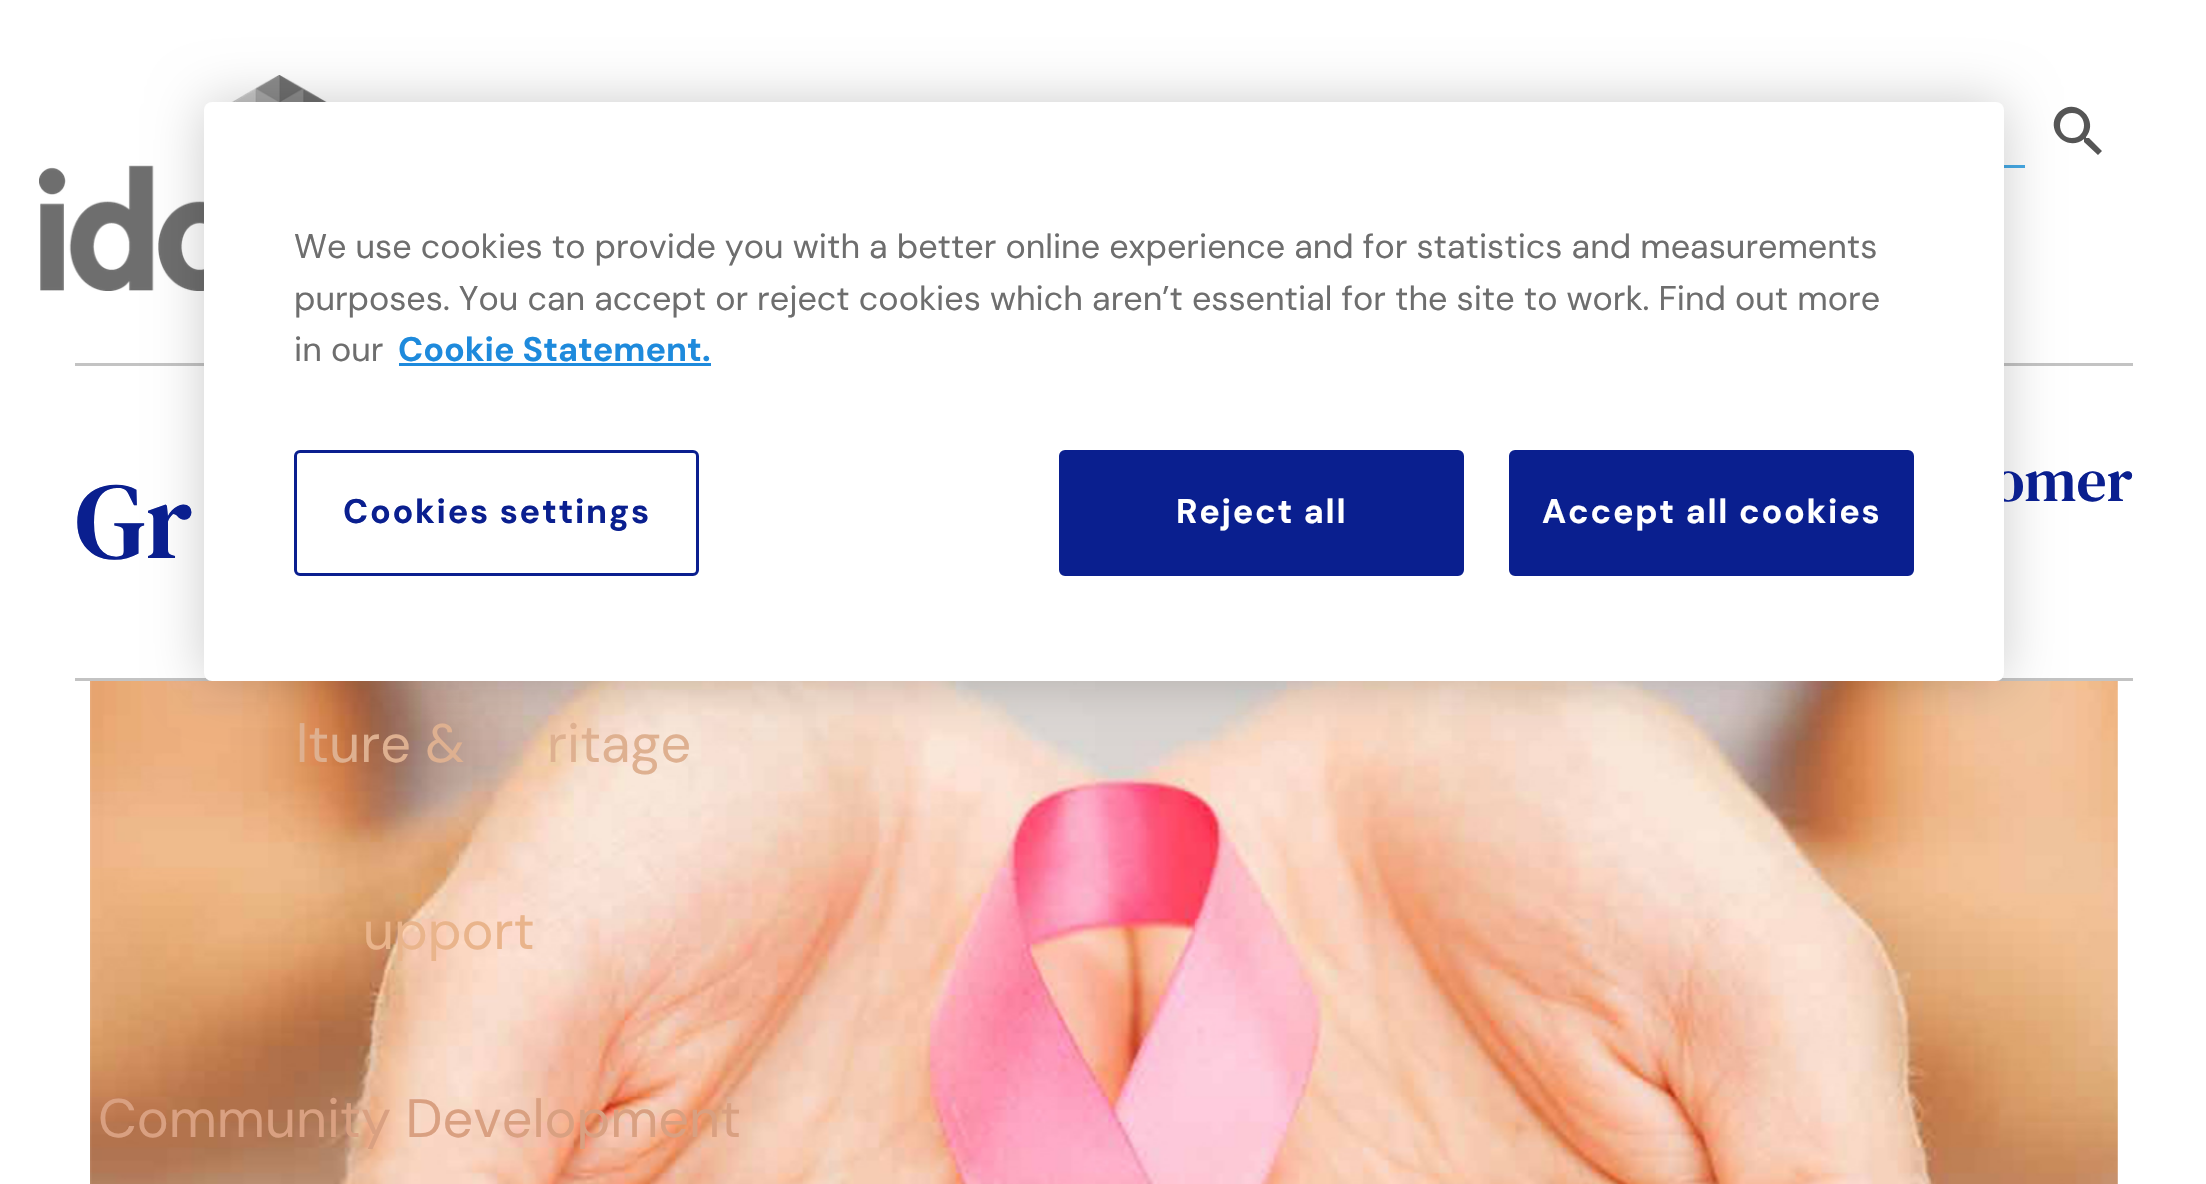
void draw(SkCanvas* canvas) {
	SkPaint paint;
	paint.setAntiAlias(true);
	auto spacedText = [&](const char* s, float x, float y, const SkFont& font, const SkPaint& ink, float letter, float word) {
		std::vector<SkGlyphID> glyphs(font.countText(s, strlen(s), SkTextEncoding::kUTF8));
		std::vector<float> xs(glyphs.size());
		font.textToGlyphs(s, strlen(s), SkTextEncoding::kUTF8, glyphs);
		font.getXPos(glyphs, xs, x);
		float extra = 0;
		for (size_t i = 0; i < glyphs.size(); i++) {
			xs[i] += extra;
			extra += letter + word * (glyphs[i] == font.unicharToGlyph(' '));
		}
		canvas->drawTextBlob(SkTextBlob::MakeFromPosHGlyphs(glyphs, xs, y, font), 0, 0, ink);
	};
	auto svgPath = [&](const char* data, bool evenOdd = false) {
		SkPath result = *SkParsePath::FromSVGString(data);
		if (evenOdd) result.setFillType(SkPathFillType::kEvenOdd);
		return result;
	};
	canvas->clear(0xffffffff);
	canvas->drawImageRect(SkImages::DeferredFromEncodedData(SkData::MakeFromFileName("img1.png")), SkRect::MakeXYWH(39, 75, 288, 216), SkSamplingOptions());
	paint.setColor(0xff555555);
	canvas->drawPath(svgPath("M2089 138H2086V137C2100 120 2076 96 2059 112C2043 129 2067 153 2084 139V142L2098 155L2102 151ZM2072 138C2056 138 2056 113 2072 113C2088 113 2088 138 2072 138Z"), paint);
	paint.setColor(0xff46aae6);
	canvas->drawRect(SkRect::MakeXYWH(2004, 165, 21, 3), paint);
	paint.setColor(0xffc3c3c3);
	canvas->drawRect(SkRect::MakeXYWH(75, 363, 2058, 3), paint);
	canvas->drawRect(SkRect::MakeXYWH(75, 678, 2058, 3), paint);
	canvas->drawImageRect(SkImages::DeferredFromEncodedData(SkData::MakeFromFileName("img2.png")), SkRect::MakeXYWH(90, 681, 2028, 503), SkSamplingOptions());
	paint.setColor(0x33000000);
	paint.setMaskFilter(SkMaskFilter::MakeBlur(kNormal_SkBlurStyle, 27));
	canvas->drawRoundRect(SkRect::MakeXYWH(204, 102, 1800, 579), 8, 8, paint);
	paint.setMaskFilter(nullptr);
	SkFont f1(fontMgr->matchFamilyStyle("DM Serif Text", SkFontStyle::Normal()), 60);
	f1.setSubpixel(true);
	paint.setColor(0xff0a1f8f);
	canvas->drawString("omer", 1992, 501, f1, paint);
	paint.setColor(0xffffffff);
	canvas->drawRoundRect(SkRect::MakeXYWH(204, 102, 1800, 579), 8, 8, paint);
	SkFont f2(fontMgr->matchFamilyStyle("DM Sans", SkFontStyle::Normal()), 34.15);
	f2.setSubpixel(true);
	paint.setColor(0xff6e6e6e);
	canvas->drawString("We use cookies to provide you with a better online experience and for statistics and measurements", 294, 258, f2, paint);
	canvas->drawString("purposes. You can accept or reject cookies which aren’t essential for the site to work. Find out more", 294, 310, f2, paint);
	canvas->drawString("in our", 294, 361, f2, paint);
	SkFont f3(fontMgr->matchFamilyStyle("DM Sans", SkFontStyle::Bold()), 34.15);
	f3.setSubpixel(true);
	paint.setColor(0xff1e8adc);
	canvas->drawString("Cookie Statement.", 398, 361, f3, paint);
	canvas->drawRect(SkRect::MakeXYWH(399, 363, 312, 3), paint);
	paint.setStroke(true);
	paint.setStrokeWidth(3);
	paint.setColor(0xff0a1f8f);
	canvas->drawRoundRect(SkRect::MakeXYWH(295.5, 451.5, 402, 123), 4.5, 4.5, paint);
	paint.setStroke(false);
	spacedText("Cookies settings", 343, 523, f3, paint, 1.75, 0);
	canvas->drawRoundRect(SkRect::MakeXYWH(1060.5, 451.5, 402, 123), 4.5, 4.5, paint);
	paint.setStroke(true);
	canvas->drawRoundRect(SkRect::MakeXYWH(1060.5, 451.5, 402, 123), 4.5, 4.5, paint);
	paint.setStroke(false);
	paint.setColor(0xffffffff);
	spacedText("Reject all", 1176, 523, f3, paint, 1.75, 0);
	paint.setColor(0xff0a1f8f);
	canvas->drawRoundRect(SkRect::MakeXYWH(1510.5, 451.5, 402, 123), 4.5, 4.5, paint);
	paint.setStroke(true);
	canvas->drawRoundRect(SkRect::MakeXYWH(1510.5, 451.5, 402, 123), 4.5, 4.5, paint);
	paint.setStroke(false);
	paint.setColor(0xffffffff);
	spacedText("Accept all cookies", 1542, 523, f3, paint, 1.75, 0);
	SkFont f4(fontMgr->matchFamilyStyle("DM Sans", SkFontStyle::Normal()), 54);
	f4.setSubpixel(true);
	paint.setColor(0xffdeb090);
	canvas->drawString("lture &", 296, 762, f4, paint);
	canvas->drawString("ritage", 547, 762, f4, paint);
	paint.setColor(0xffe9b48b);
	canvas->drawString("upport", 363, 949, f4, paint);
	paint.setColor(0xffd9a081);
	canvas->drawString("Community Development", 98, 1137, f4, paint);
	SkFont f5(fontMgr->matchFamilyStyle("DM Serif Text", SkFontStyle::Normal()), 108);
	f5.setSubpixel(true);
	paint.setColor(0xff0a1f8f);
	canvas->drawString("Gr", 75, 558, f5, paint);
}
